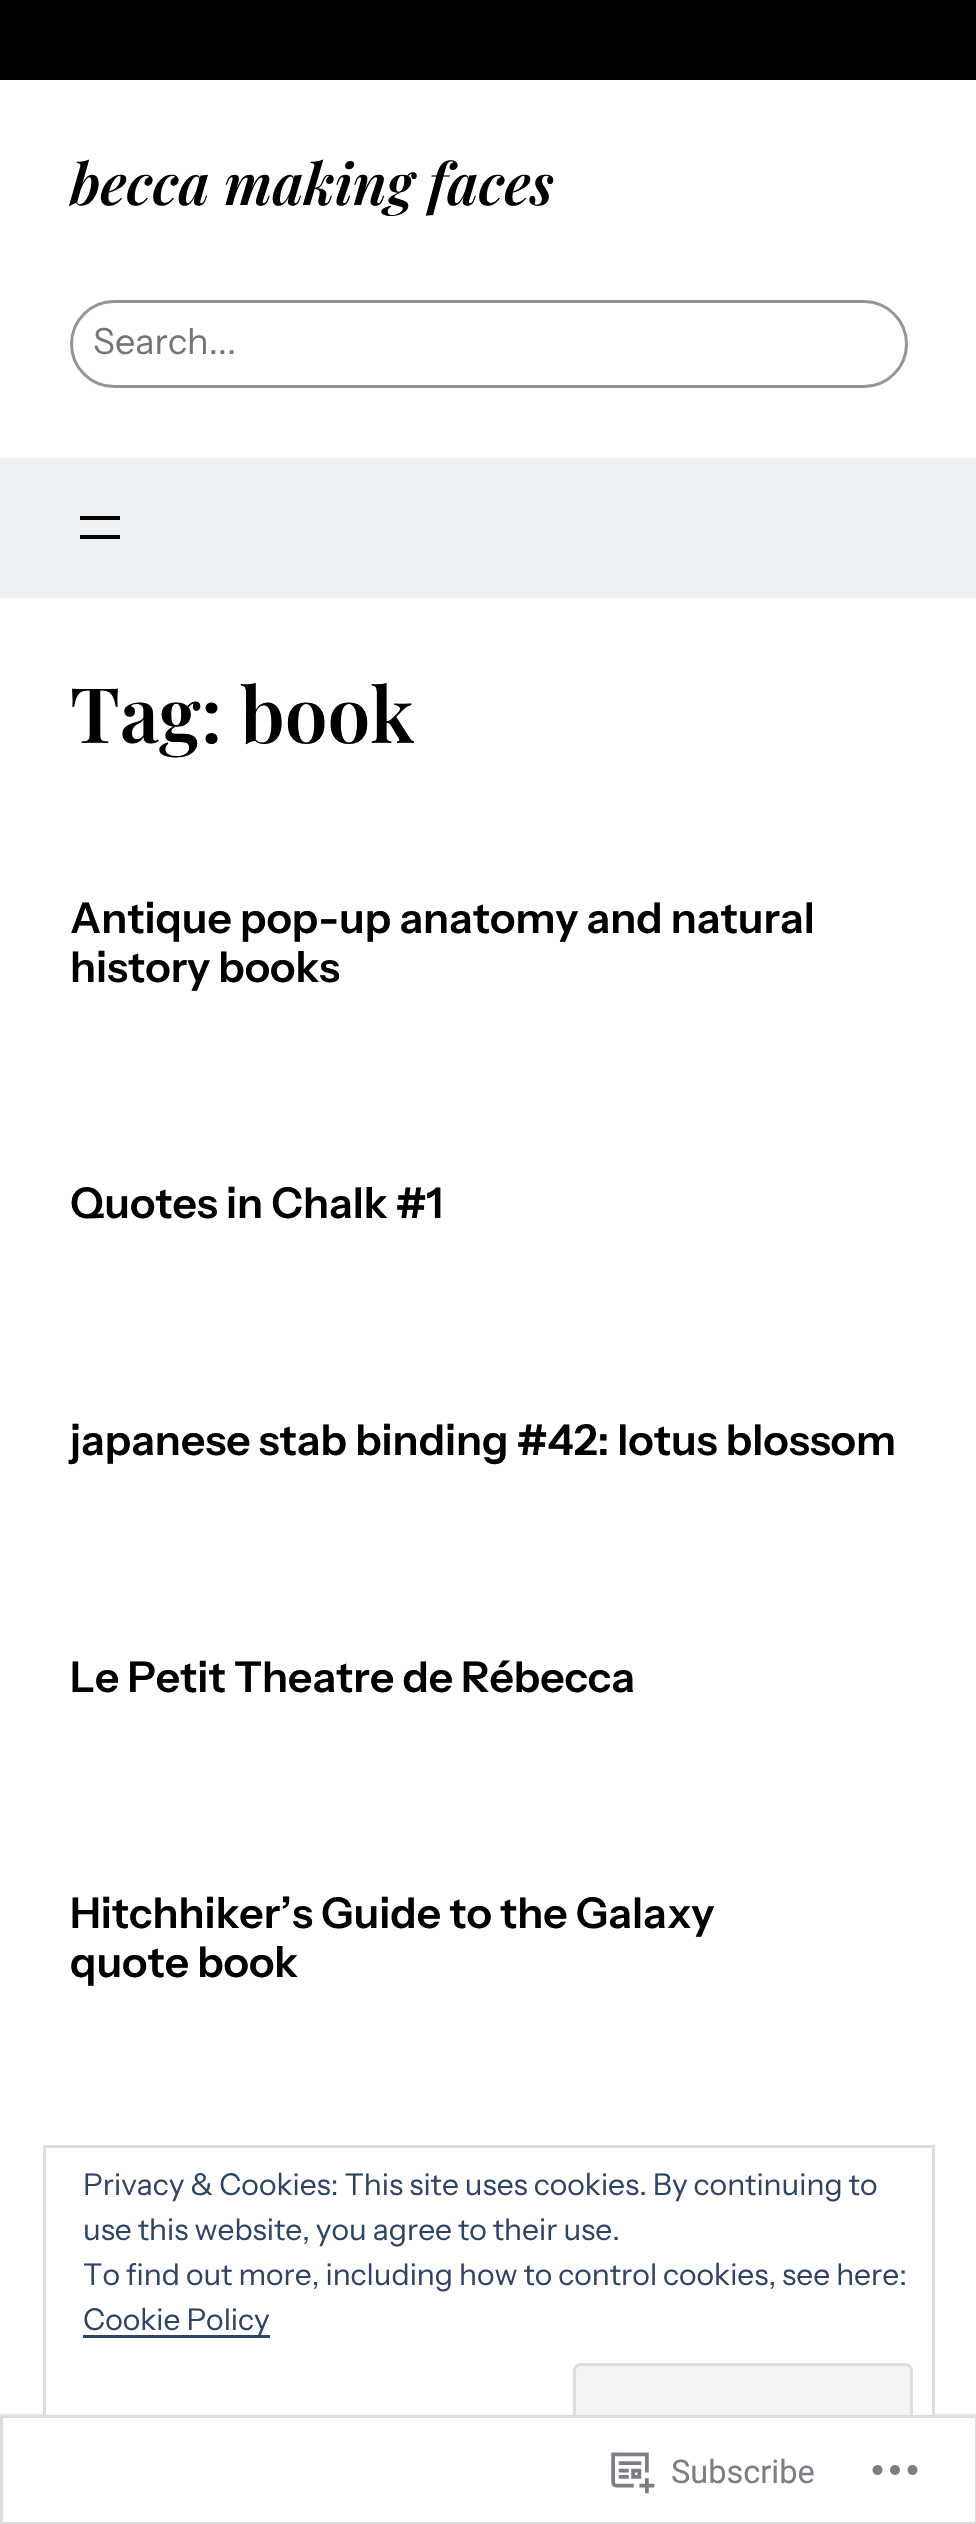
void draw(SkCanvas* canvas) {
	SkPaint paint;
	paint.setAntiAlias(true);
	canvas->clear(0xffffffff);
	paint.setColor(0xff000000);
	canvas->drawRect(SkRect::MakeXYWH(0, 0, 976, 80), paint);
	SkFont f1(fontMgr->matchFamilyStyle("Playfair Display", SkFontStyle(600, SkFontStyle::kNormal_Width, SkFontStyle::kItalic_Slant)), 57.25);
	f1.setSubpixel(true);
	canvas->drawString("becca making faces", 70, 205, f1, paint);
	paint.setStroke(true);
	paint.setStrokeWidth(3);
	paint.setColor(0xff949494);
	canvas->drawRoundRect(SkRect::MakeXYWH(71.5, 301.5, 835, 85), 42.5, 42.5, paint);
	SkFont f2(fontMgr->matchFamilyStyle("Instrument Sans", SkFontStyle::Normal()), 36);
	f2.setSubpixel(true);
	paint.setStroke(false);
	paint.setColor(0xff757575);
	canvas->drawString("Search...", 93, 354, f2, paint);
	paint.setColor(0xffedf1f4);
	canvas->drawRect(SkRect::MakeXYWH(0, 458, 976, 140), paint);
	paint.setColor(0xff000000);
	canvas->drawRect(SkRect::MakeXYWH(80, 516, 40, 4), paint);
	canvas->drawRect(SkRect::MakeXYWH(80, 535, 40, 4), paint);
	SkFont f3(fontMgr->matchFamilyStyle("Playfair Display", SkFontStyle(600, SkFontStyle::kNormal_Width, SkFontStyle::kUpright_Slant)), 76.5);
	f3.setSubpixel(true);
	canvas->drawString("Tag: book", 70, 743, f3, paint);
	SkFont f4(fontMgr->matchFamilyStyle("Instrument Sans", SkFontStyle(600, SkFontStyle::kNormal_Width, SkFontStyle::kUpright_Slant)), 42.5);
	f4.setSubpixel(true);
	canvas->drawString("Antique pop-up anatomy and natural", 70, 933, f4, paint);
	canvas->drawString("history books", 70, 982, f4, paint);
	canvas->drawString("Quotes in Chalk #1", 70, 1218, f4, paint);
	canvas->drawString("japanese stab binding #42: lotus blossom", 70, 1455, f4, paint);
	canvas->drawString("Le Petit Theatre de Rébecca", 70, 1692, f4, paint);
	canvas->drawString("Hitchhiker’s Guide to the Galaxy", 70, 1928, f4, paint);
	canvas->drawString("quote book", 70, 1977, f4, paint);
	paint.setColor(0xffedf1f4);
	canvas->drawRect(SkRect::MakeXYWH(0, 2413, 976, 111), paint);
	paint.setColor(0xffffffff);
	canvas->drawRect(SkRect::MakeXYWH(46, 2413, 886, 67), paint);
	paint.setStroke(true);
	paint.setColor(0xffdedede);
	canvas->drawRect(SkRect::MakeXYWH(44.5, 2146.5, 889, 335), paint);
	SkFont f5(fontMgr->matchFamilyStyle("Instrument Sans", SkFontStyle::Normal()), 30);
	f5.setSubpixel(true);
	paint.setStroke(false);
	paint.setColor(0xff2e4467);
	canvas->drawString("Privacy & Cookies: This site uses cookies. By continuing to", 83, 2195, f5, paint);
	canvas->drawString("use this website, you agree to their use.", 83, 2240, f5, paint);
	canvas->drawString("To find out more, including how to control cookies, see here:", 83, 2285, f5, paint);
	canvas->drawRect(SkRect::MakeXYWH(83, 2335, 187, 3), paint);
	canvas->drawString("Cookie Policy", 83, 2330, f5, paint);
	paint.setColor(0xfff3f3f3);
	canvas->drawRoundRect(SkRect::MakeXYWH(574.5, 2364.5, 337, 94), 6.5, 6.5, paint);
	paint.setStroke(true);
	paint.setColor(0xffdedede);
	canvas->drawRoundRect(SkRect::MakeXYWH(574.5, 2364.5, 337, 94), 6.5, 6.5, paint);
	paint.setStroke(false);
	paint.setColor(0xfaffffff);
	canvas->drawRect(SkRect::MakeXYWH(0, 2415, 976, 109), paint);
	paint.setStroke(true);
	paint.setColor(0xfadcdcde);
	canvas->drawRect(SkRect::MakeXYWH(1.5, 2416.5, 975, 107), paint);
	canvas->drawImageRect(SkImages::DeferredFromEncodedData(SkData::MakeFromFileName("img1.png")), SkRect::MakeXYWH(611, 2452, 44, 42), SkSamplingOptions());
	SkFont f6(fontMgr->matchFamilyStyle("Roboto", SkFontStyle::Normal()), 32.5);
	f6.setSubpixel(true);
	paint.setStroke(false);
	paint.setColor(0xff7b7f84);
	canvas->drawString("Subscribe", 671, 2483, f6, paint);
	canvas->drawImageRect(SkImages::DeferredFromEncodedData(SkData::MakeFromFileName("img2.png")), SkRect::MakeXYWH(872, 2465, 46, 10), SkSamplingOptions());
}
